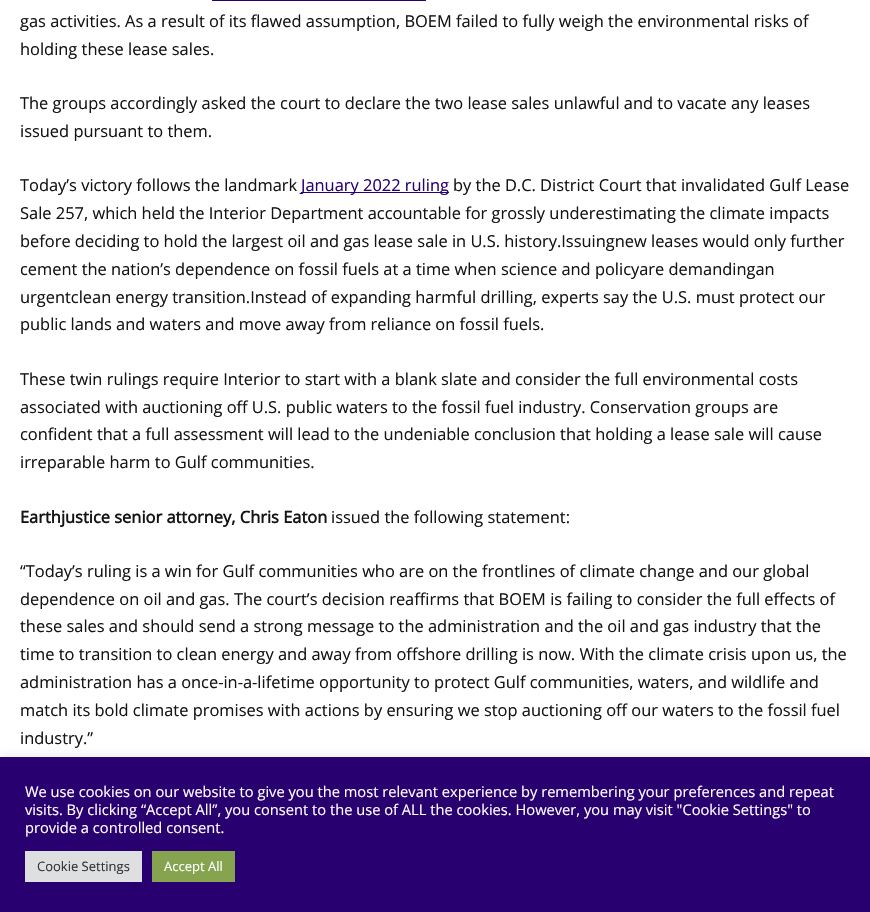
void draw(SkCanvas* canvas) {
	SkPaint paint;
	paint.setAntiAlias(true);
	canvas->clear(0xffffffff);
	paint.setColor(0xff280070);
	canvas->drawRect(SkRect::MakeXYWH(212, 0, 214, 1), paint);
	SkFont f1(fontMgr->matchFamilyStyle("Open Sans", SkFontStyle::Normal()), 16.42);
	f1.setSubpixel(true);
	paint.setColor(0xff141414);
	canvas->drawString("gas activities. As a result of its flawed assumption, BOEM failed to fully weigh the environmental risks of", 20, 27, f1, paint);
	canvas->drawString("holding these lease sales.", 20, 55, f1, paint);
	canvas->drawString("The groups accordingly asked the court to declare the two lease sales unlawful and to vacate any leases", 20, 109, f1, paint);
	canvas->drawString("issued pursuant to them.", 20, 137, f1, paint);
	canvas->drawString("Today’s victory follows the landmark", 20, 191, f1, paint);
	paint.setColor(0xff280070);
	canvas->drawRect(SkRect::MakeXYWH(301, 192, 148, 1), paint);
	canvas->drawString("January 2022 ruling", 301, 191, f1, paint);
	paint.setColor(0xff141414);
	canvas->drawString("by the D.C. District Court that invalidated Gulf Lease", 453, 191, f1, paint);
	canvas->drawString("Sale 257, which held the Interior Department accountable for grossly underestimating the climate impacts", 20, 219, f1, paint);
	canvas->drawString("before deciding to hold the largest oil and gas lease sale in U.S. history. Issuing new leases would only further", 20, 247, f1, paint);
	canvas->drawString("cement the nation’s dependence on fossil fuels at a time when science and policy are demanding an", 20, 275, f1, paint);
	canvas->drawString("urgent clean energy transition. Instead of expanding harmful drilling, experts say the U.S. must protect our", 20, 303, f1, paint);
	canvas->drawString("public lands and waters and move away from reliance on fossil fuels.", 20, 330, f1, paint);
	canvas->drawString("These twin rulings require Interior to start with a blank slate and consider the full environmental costs", 20, 385, f1, paint);
	canvas->drawString("associated with auctioning off U.S. public waters to the fossil fuel industry. Conservation groups are", 20, 413, f1, paint);
	canvas->drawString("confident that a full assessment will lead to the undeniable conclusion that holding a lease sale will cause", 20, 440, f1, paint);
	canvas->drawString("irreparable harm to Gulf communities.", 20, 468, f1, paint);
	SkFont f2(fontMgr->matchFamilyStyle("Open Sans", SkFontStyle::Bold()), 16.42);
	f2.setSubpixel(true);
	canvas->drawString("Earthjustice senior attorney, Chris Eaton", 20, 523, f2, paint);
	canvas->drawString("issued the following statement:", 331, 523, f1, paint);
	canvas->drawString("“Today’s ruling is a win for Gulf communities who are on the frontlines of climate change and our global", 20, 577, f1, paint);
	canvas->drawString("dependence on oil and gas. The court’s decision reaffirms that BOEM is failing to consider the full effects of", 20, 605, f1, paint);
	canvas->drawString("these sales and should send a strong message to the administration and the oil and gas industry that the", 20, 632, f1, paint);
	canvas->drawString("time to transition to clean energy and away from offshore drilling is now. With the climate crisis upon us, the", 20, 660, f1, paint);
	canvas->drawString("administration has a once-in-a-lifetime opportunity to protect Gulf communities, waters, and wildlife and", 20, 688, f1, paint);
	canvas->drawString("match its bold climate promises with actions by ensuring we stop auctioning off our waters to the fossil fuel", 20, 716, f1, paint);
	canvas->drawString("industry.”", 20, 744, f1, paint);
	paint.setColor(0x4dacabab);
	paint.setMaskFilter(SkMaskFilter::MakeBlur(kNormal_SkBlurStyle, 5));
	canvas->drawRect(SkRect::MakeXYWH(0, 756, 870, 155), paint);
	paint.setMaskFilter(nullptr);
	paint.setColor(0xff280070);
	canvas->drawRect(SkRect::MakeXYWH(0, 757, 870, 155), paint);
	SkFont f3(fontMgr->matchFamilyStyle("Open Sans", SkFontStyle::Normal()), 14.67);
	f3.setSubpixel(true);
	paint.setColor(0xffffffff);
	canvas->drawString("We use cookies on our website to give you the most relevant experience by remembering your preferences and repeat", 25, 797, f3, paint);
	canvas->drawString("visits. By clicking “Accept All”, you consent to the use of ALL the cookies. However, you may visit \"Cookie Settings\" to", 25, 815, f3, paint);
	canvas->drawString("provide a controlled consent.", 25, 833, f3, paint);
	paint.setColor(0xffdedfe0);
	canvas->drawRect(SkRect::MakeXYWH(25, 851, 117, 31), paint);
	SkFont f4(fontMgr->matchFamilyStyle("Open Sans", SkFontStyle::Normal()), 13);
	f4.setSubpixel(true);
	paint.setColor(0xff333333);
	canvas->drawString("Cookie Settings", 37, 871, f4, paint);
	paint.setColor(0xff86a44f);
	canvas->drawRect(SkRect::MakeXYWH(152, 851, 83, 31), paint);
	paint.setColor(0xffffffff);
	canvas->drawString("Accept All", 164, 871, f4, paint);
}
